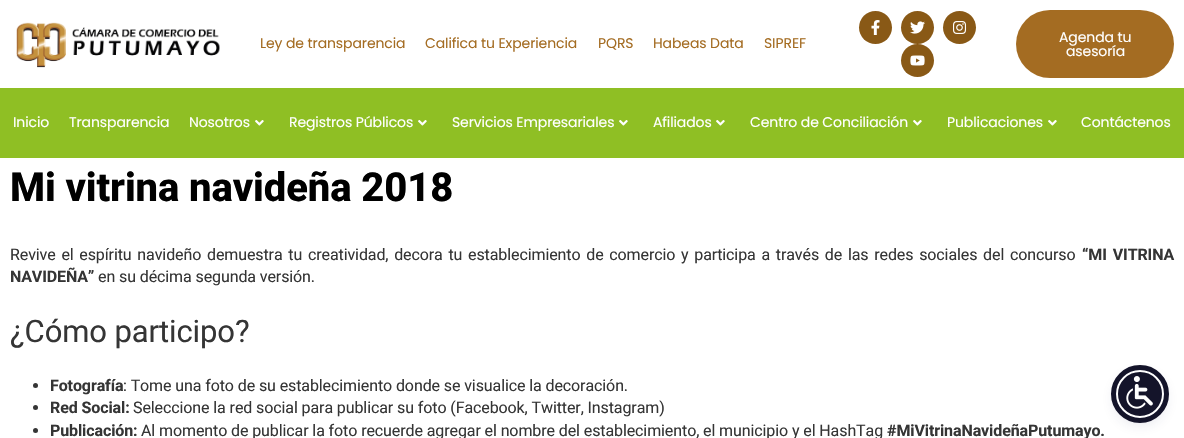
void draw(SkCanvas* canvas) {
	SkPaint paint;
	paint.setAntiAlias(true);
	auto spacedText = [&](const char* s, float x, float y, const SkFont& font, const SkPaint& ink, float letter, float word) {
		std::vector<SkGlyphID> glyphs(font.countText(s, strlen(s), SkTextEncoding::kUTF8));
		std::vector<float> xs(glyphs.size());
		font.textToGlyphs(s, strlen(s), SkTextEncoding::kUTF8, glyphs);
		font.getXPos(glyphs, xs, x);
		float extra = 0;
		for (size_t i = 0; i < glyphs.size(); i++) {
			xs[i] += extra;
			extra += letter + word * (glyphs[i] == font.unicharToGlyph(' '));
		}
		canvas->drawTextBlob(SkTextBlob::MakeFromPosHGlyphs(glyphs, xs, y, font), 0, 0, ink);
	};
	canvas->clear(0xffffffff);
	canvas->drawImageRect(SkImages::DeferredFromEncodedData(SkData::MakeFromFileName("img1.png")), SkRect::MakeXYWH(16, 22, 204, 46), SkSamplingOptions());
	SkFont f1(fontMgr->matchFamilyStyle("Poppins", SkFontStyle::Normal()), 14);
	f1.setSubpixel(true);
	paint.setColor(0xffa46c22);
	spacedText("Ley de transparencia", 260, 48, f1, paint, -0.1, 0);
	spacedText("Califica tu Experiencia", 425, 48, f1, paint, -0.1, 0);
	spacedText("PQRS", 598, 48, f1, paint, -0.1, 0);
	spacedText("Habeas Data", 653, 48, f1, paint, -0.1, 0);
	spacedText("SIPREF", 764, 48, f1, paint, -0.1, 0);
	paint.setColor(0xff895916);
	canvas->drawCircle(875.5, 27.5, 16.5, paint);
	canvas->drawImageRect(SkImages::DeferredFromEncodedData(SkData::MakeFromFileName("img2.png")), SkRect::MakeXYWH(871, 20, 9, 15), SkSamplingOptions());
	canvas->drawCircle(917.5, 27.5, 16.5, paint);
	canvas->drawImageRect(SkImages::DeferredFromEncodedData(SkData::MakeFromFileName("img3.png")), SkRect::MakeXYWH(910, 21, 15, 13), SkSamplingOptions());
	canvas->drawCircle(959.5, 27.5, 16.5, paint);
	canvas->drawImageRect(SkImages::DeferredFromEncodedData(SkData::MakeFromFileName("img4.png")), SkRect::MakeXYWH(953, 21, 14, 13), SkSamplingOptions());
	canvas->drawCircle(917.5, 60.5, 16.5, paint);
	canvas->drawImageRect(SkImages::DeferredFromEncodedData(SkData::MakeFromFileName("img5.png")), SkRect::MakeXYWH(910, 55, 15, 11), SkSamplingOptions());
	paint.setColor(0xffa46c22);
	canvas->drawRoundRect(SkRect::MakeXYWH(1016, 10, 158, 68), 34, 34, paint);
	paint.setColor(0xffffffff);
	spacedText("Agenda tu", 1059, 42, f1, paint, -0.1, 0);
	spacedText("asesoría", 1066, 56, f1, paint, -0.1, 0);
	paint.setColor(0xff8fbf24);
	canvas->drawRect(SkRect::MakeXYWH(0, 88, 1184, 70), paint);
	paint.setColor(0xffffffff);
	spacedText("Inicio", 13, 127, f1, paint, -0.1, 0);
	spacedText("Transparencia", 69, 127, f1, paint, -0.1, 0);
	spacedText("Nosotros", 189, 127, f1, paint, -0.1, 0);
	canvas->drawImageRect(SkImages::DeferredFromEncodedData(SkData::MakeFromFileName("img6.png")), SkRect::MakeXYWH(255, 120, 9, 6), SkSamplingOptions());
	spacedText("Registros Públicos", 289, 127, f1, paint, -0.1, 0);
	canvas->drawImageRect(SkImages::DeferredFromEncodedData(SkData::MakeFromFileName("img6.png")), SkRect::MakeXYWH(418, 120, 9, 6), SkSamplingOptions());
	spacedText("Servicios Empresariales", 452, 127, f1, paint, -0.1, 0);
	canvas->drawImageRect(SkImages::DeferredFromEncodedData(SkData::MakeFromFileName("img6.png")), SkRect::MakeXYWH(619, 120, 9, 6), SkSamplingOptions());
	spacedText("Afiliados", 653, 127, f1, paint, -0.1, 0);
	canvas->drawImageRect(SkImages::DeferredFromEncodedData(SkData::MakeFromFileName("img6.png")), SkRect::MakeXYWH(716, 120, 9, 6), SkSamplingOptions());
	spacedText("Centro de Conciliación", 750, 127, f1, paint, -0.1, 0);
	canvas->drawImageRect(SkImages::DeferredFromEncodedData(SkData::MakeFromFileName("img6.png")), SkRect::MakeXYWH(913, 120, 9, 6), SkSamplingOptions());
	spacedText("Publicaciones", 947, 127, f1, paint, -0.1, 0);
	canvas->drawImageRect(SkImages::DeferredFromEncodedData(SkData::MakeFromFileName("img6.png")), SkRect::MakeXYWH(1048, 120, 9, 6), SkSamplingOptions());
	spacedText("Contáctenos", 1081, 127, f1, paint, -0.1, 0);
	SkFont f2(fontMgr->matchFamilyStyle("Roboto", SkFontStyle(800, SkFontStyle::kNormal_Width, SkFontStyle::kUpright_Slant)), 40);
	f2.setSubpixel(true);
	paint.setColor(0xff000000);
	spacedText("Mi vitrina navideña 2018", 10, 201, f2, paint, -0.1, 0);
	SkFont f3(fontMgr->matchFamilyStyle("Roboto", SkFontStyle::Normal()), 16);
	f3.setSubpixel(true);
	paint.setColor(0xff353535);
	spacedText("Revive el espíritu navideño demuestra tu creatividad, decora tu establecimiento de comercio y participa a través de las redes sociales del concurso", 10, 260, f3, paint, -0.1, 1.9);
	SkFont f4(fontMgr->matchFamilyStyle("Roboto", SkFontStyle::Bold()), 16);
	f4.setSubpixel(true);
	spacedText("“MI VITRINA", 1082, 260, f4, paint, -0.1, 2);
	spacedText("NAVIDEÑA”", 10, 282, f4, paint, -0.1, 0);
	spacedText("en su décima segunda versión.", 98, 282, f3, paint, -0.1, 0);
	SkFont f5(fontMgr->matchFamilyStyle("Roboto", SkFontStyle::Normal()), 31);
	f5.setSubpixel(true);
	spacedText("¿Cómo participo?", 10, 342, f5, paint, -0.1, 0);
	canvas->drawCircle(35.5, 385.5, 2.5, paint);
	spacedText("Fotografía", 50, 391, f4, paint, -0.1, 0);
	spacedText(": Tome una foto de su establecimiento donde se visualice la decoración.", 123, 391, f3, paint, -0.1, 0);
	canvas->drawCircle(35.5, 407.5, 2.5, paint);
	spacedText("Red Social:", 50, 413, f4, paint, -0.1, 0);
	spacedText("Seleccione la red social para publicar su foto (Facebook, Twitter, Instagram)", 133, 413, f3, paint, -0.1, 0);
	canvas->drawCircle(35.5, 430.5, 2.5, paint);
	spacedText("Publicación:", 50, 436, f4, paint, -0.1, 0);
	spacedText("Al momento de publicar la foto recuerde agregar el nombre del establecimiento, el municipio y el HashTag", 141, 436, f3, paint, -0.1, 0);
	spacedText("#MiVitrinaNavideñaPutumayo.", 887, 436, f4, paint, -0.1, 0);
	paint.setColor(0x335d6494);
	paint.setMaskFilter(SkMaskFilter::MakeBlur(kNormal_SkBlurStyle, 2));
	canvas->drawRoundRect(SkRect::MakeXYWH(1116, 372, 48, 48), 24, 24, paint);
	paint.setMaskFilter(nullptr);
	paint.setColor(0x26252c61);
	paint.setMaskFilter(SkMaskFilter::MakeBlur(kNormal_SkBlurStyle, 7.5));
	canvas->drawRoundRect(SkRect::MakeXYWH(1116, 375, 48, 48), 24, 24, paint);
	paint.setMaskFilter(nullptr);
	paint.setColor(0xff14142a);
	canvas->drawCircle(1140, 394, 23, paint);
	paint.setStroke(true);
	paint.setStrokeWidth(2);
	paint.setColor(0xffffffff);
	canvas->drawCircle(1140, 394, 23, paint);
	paint.setStrokeWidth(5);
	paint.setColor(0xff14142a);
	canvas->drawCircle(1140, 394, 26.5, paint);
	canvas->drawImageRect(SkImages::DeferredFromEncodedData(SkData::MakeFromFileName("img7.png")), SkRect::MakeXYWH(1126, 376, 27, 33), SkSamplingOptions());
}
